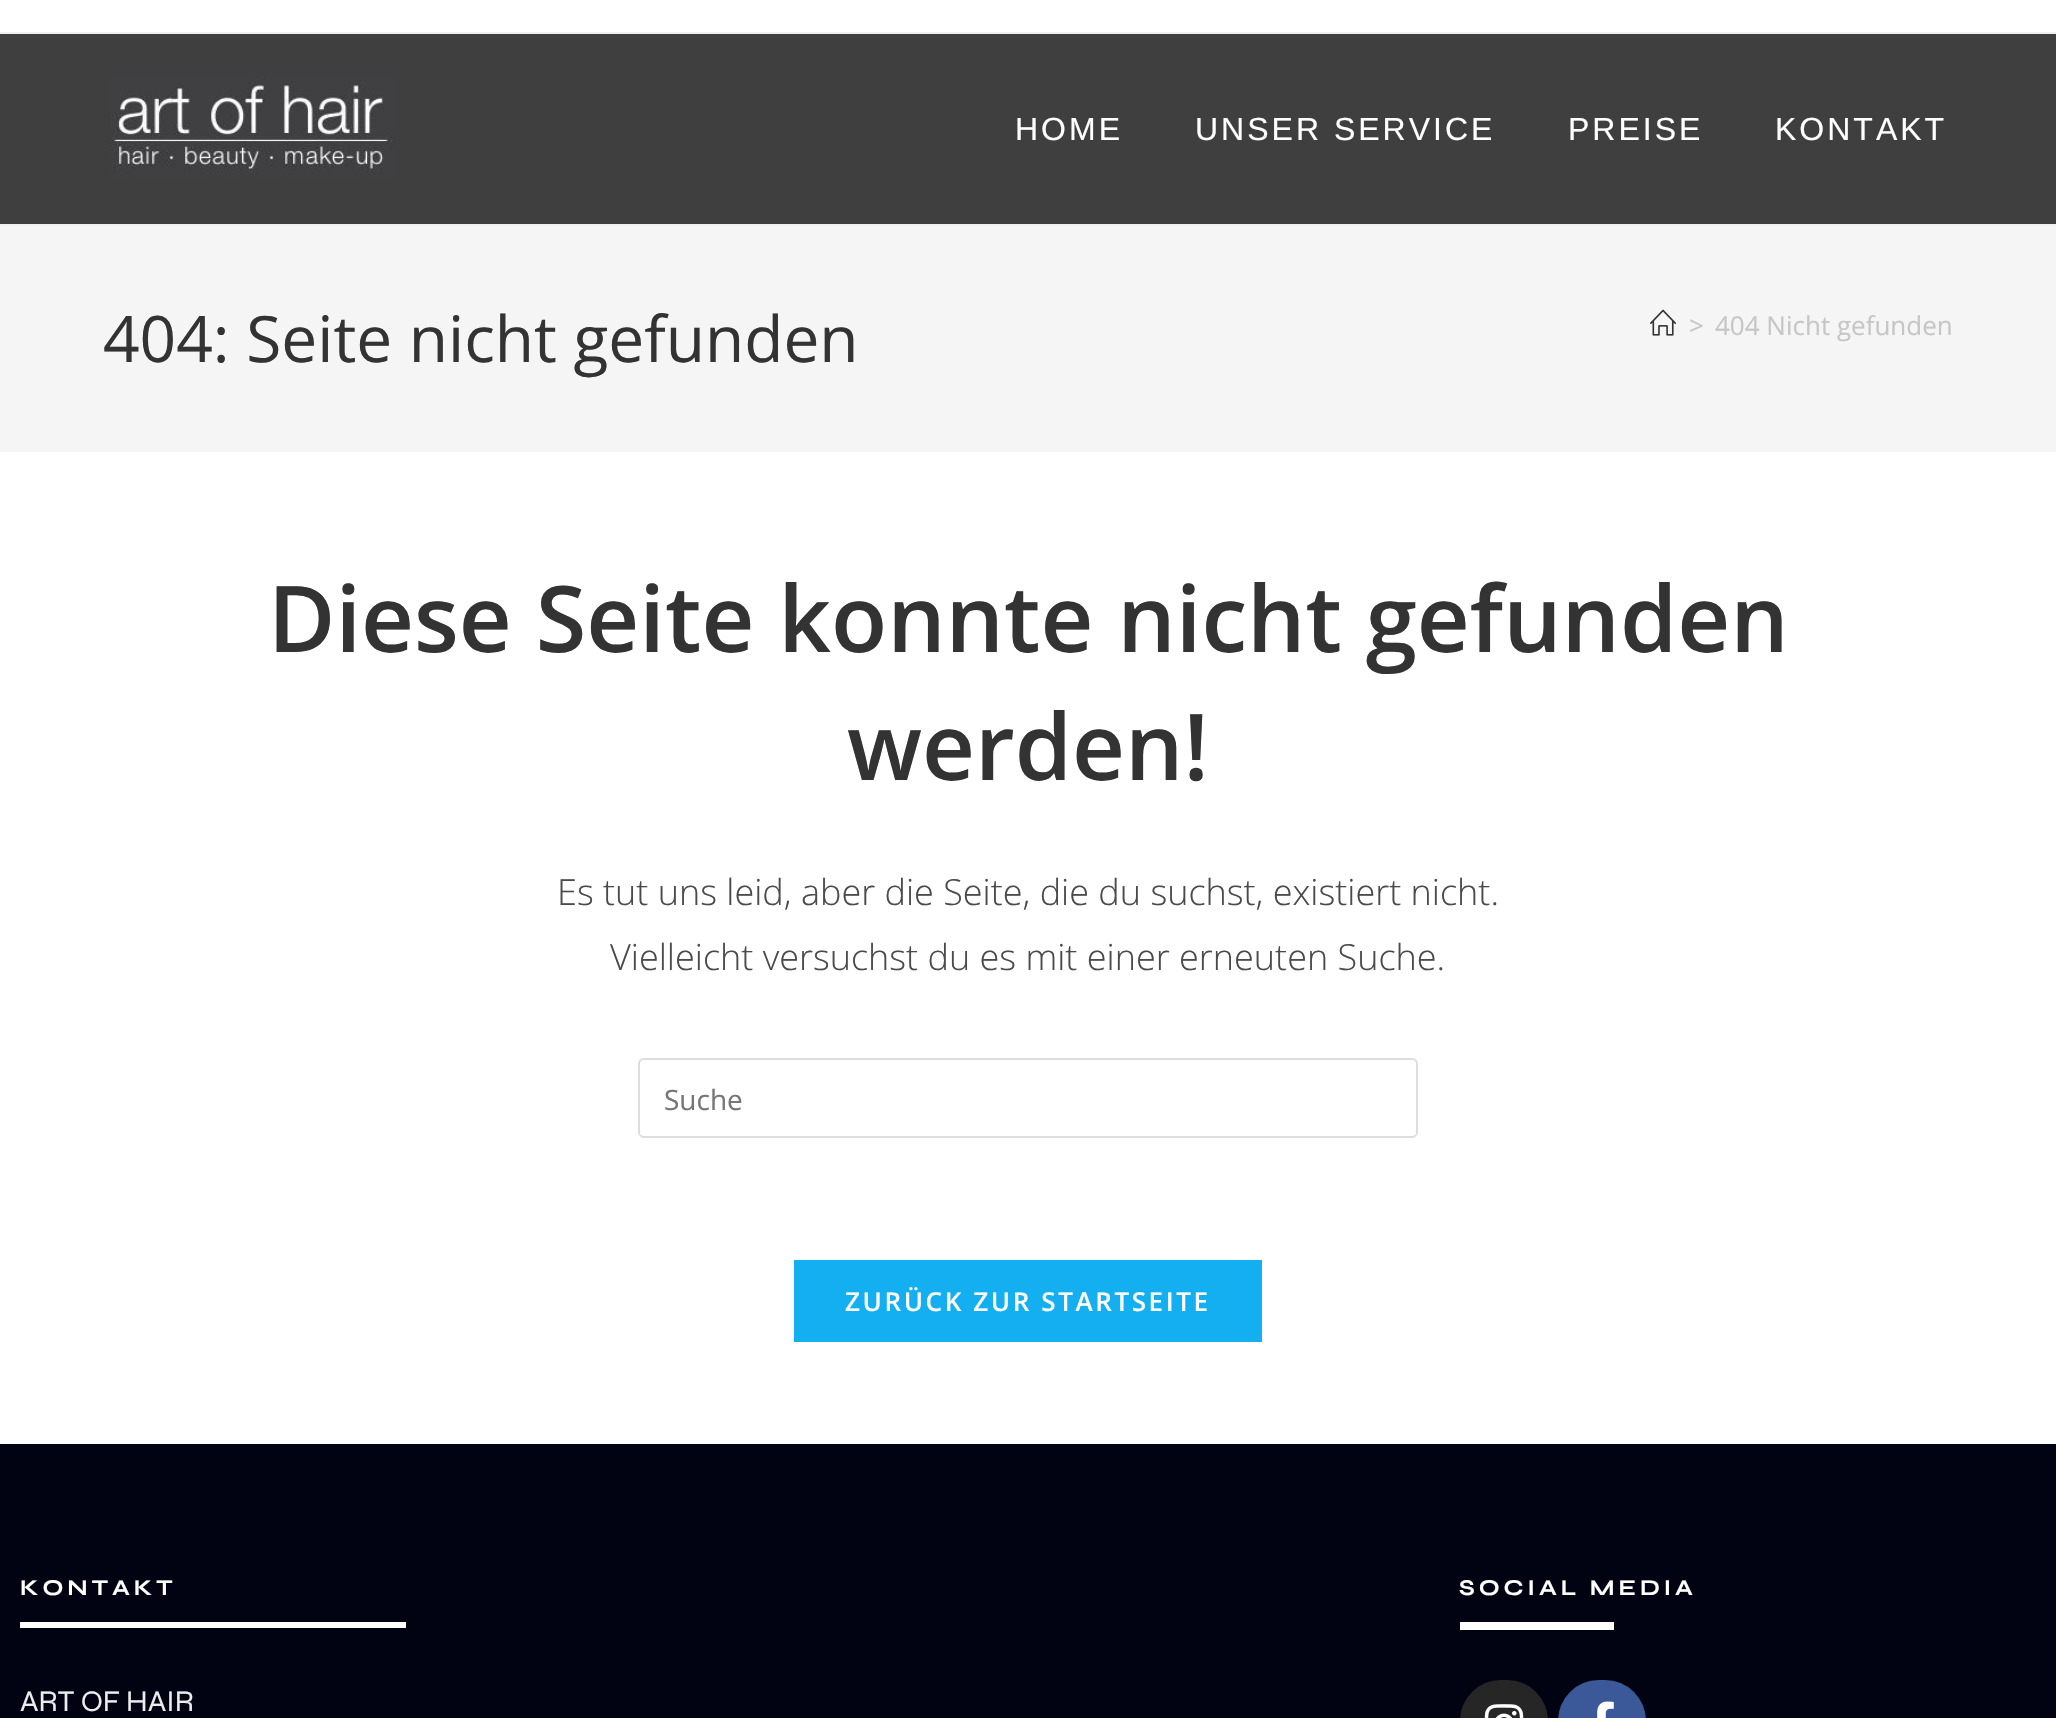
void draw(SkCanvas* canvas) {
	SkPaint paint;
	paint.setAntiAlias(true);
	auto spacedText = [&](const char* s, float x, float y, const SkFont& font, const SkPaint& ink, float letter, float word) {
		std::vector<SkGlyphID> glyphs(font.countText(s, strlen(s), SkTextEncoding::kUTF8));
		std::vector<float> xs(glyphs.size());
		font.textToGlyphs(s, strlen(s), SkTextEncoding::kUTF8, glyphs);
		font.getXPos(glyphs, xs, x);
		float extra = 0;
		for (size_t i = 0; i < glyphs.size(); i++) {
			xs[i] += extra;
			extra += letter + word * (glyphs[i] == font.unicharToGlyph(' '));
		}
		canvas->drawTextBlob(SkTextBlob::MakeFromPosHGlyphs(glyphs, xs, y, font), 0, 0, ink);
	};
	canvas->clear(0xffffffff);
	paint.setColor(0xfff1f1f1);
	canvas->drawRect(SkRect::MakeXYWH(0, 32, 2056, 2), paint);
	paint.setColor(0xff3f3f3f);
	canvas->drawRect(SkRect::MakeXYWH(0, 34, 2056, 190), paint);
	paint.setColor(0xfff1f1f1);
	canvas->drawRect(SkRect::MakeXYWH(0, 224, 2056, 2), paint);
	canvas->drawImageRect(SkImages::DeferredFromEncodedData(SkData::MakeFromFileName("img1.png")), SkRect::MakeXYWH(111, 76, 282, 101), SkSamplingOptions());
	SkFont f1(fontMgr->matchFamilyStyle("Liberation Sans", SkFontStyle::Normal()), 32);
	f1.setSubpixel(true);
	paint.setColor(0xffffffff);
	spacedText("HOME", 1015, 140, f1, paint, 3, 0);
	spacedText("UNSER SERVICE", 1195, 140, f1, paint, 3, 0);
	spacedText("PREISE", 1568, 140, f1, paint, 3, 0);
	spacedText("KONTAKT", 1775, 140, f1, paint, 3, 0);
	paint.setColor(0xfff5f5f5);
	canvas->drawRect(SkRect::MakeXYWH(0, 226, 2056, 226), paint);
	SkFont f2(fontMgr->matchFamilyStyle("Open Sans", SkFontStyle::Normal()), 64);
	f2.setSubpixel(true);
	paint.setColor(0xff333333);
	canvas->drawString("404: Seite nicht gefunden", 103, 362, f2, paint);
	canvas->drawImageRect(SkImages::DeferredFromEncodedData(SkData::MakeFromFileName("img2.png")), SkRect::MakeXYWH(1650, 309, 26, 27), SkSamplingOptions());
	SkFont f3(fontMgr->matchFamilyStyle("Open Sans", SkFontStyle::Normal()), 26);
	f3.setSubpixel(true);
	paint.setColor(0xffc6c6c6);
	canvas->drawString(">", 1689, 335, f3, paint);
	canvas->drawString("404 Nicht gefunden", 1715, 335, f3, paint);
	SkFont f4(fontMgr->matchFamilyStyle("Open Sans", SkFontStyle(600, SkFontStyle::kNormal_Width, SkFontStyle::kUpright_Slant)), 92);
	f4.setSubpixel(true);
	paint.setColor(0xff333333);
	canvas->drawString("Diese Seite konnte nicht gefunden", 268, 652, f4, paint);
	canvas->drawString("werden!", 847, 780, f4, paint);
	SkFont f5(fontMgr->matchFamilyStyle("Open Sans", SkFontStyle(300, SkFontStyle::kNormal_Width, SkFontStyle::kUpright_Slant)), 36);
	f5.setSubpixel(true);
	paint.setColor(0xff4a4a4a);
	canvas->drawString("Es tut uns leid, aber die Seite, die du suchst, existiert nicht.", 557, 905, f5, paint);
	canvas->drawString("Vielleicht versuchst du es mit einer erneuten Suche.", 610, 970, f5, paint);
	paint.setStroke(true);
	paint.setStrokeWidth(2);
	paint.setColor(0xffdddddd);
	canvas->drawRoundRect(SkRect::MakeXYWH(639, 1059, 778, 78), 5, 5, paint);
	SkFont f6(fontMgr->matchFamilyStyle("Open Sans", SkFontStyle::Normal()), 28);
	f6.setSubpixel(true);
	paint.setStroke(false);
	paint.setColor(0xff757575);
	canvas->drawString("Suche", 664, 1110, f6, paint);
	paint.setColor(0xff13aff0);
	canvas->drawRect(SkRect::MakeXYWH(794, 1260, 468, 82), paint);
	SkFont f7(fontMgr->matchFamilyStyle("Open Sans", SkFontStyle(600, SkFontStyle::kNormal_Width, SkFontStyle::kUpright_Slant)), 26);
	f7.setSubpixel(true);
	paint.setColor(0xffffffff);
	spacedText("ZURÜCK ZUR STARTSEITE", 845, 1311, f7, paint, 2.6, 0);
	paint.setColor(0xff010212);
	canvas->drawRect(SkRect::MakeXYWH(0, 1444, 2056, 274), paint);
	SkFont f8(fontMgr->matchFamilyStyle("Syne", SkFontStyle::Bold()), 22.6);
	f8.setSubpixel(true);
	paint.setColor(0xffffffff);
	spacedText("KONTAKT", 20, 1595, f8, paint, 4, 0);
	canvas->drawRect(SkRect::MakeXYWH(20, 1622, 386, 6), paint);
	SkFont f9(fontMgr->matchFamilyStyle("Syne", SkFontStyle::Normal()), 30);
	f9.setSubpixel(true);
	paint.setColor(0xffededee);
	canvas->drawString("ART OF HAIR", 20, 1711, f9, paint);
	paint.setColor(0xffffffff);
	spacedText("SOCIAL MEDIA", 1459, 1595, f8, paint, 4, 0);
	canvas->drawRect(SkRect::MakeXYWH(1460, 1622, 154, 8), paint);
	paint.setColor(0xff262626);
	canvas->drawRoundRect(SkRect::MakeXYWH(1460, 1680, 88, 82), 44, 44, paint);
	canvas->drawImageRect(SkImages::DeferredFromEncodedData(SkData::MakeFromFileName("img3.png")), SkRect::MakeXYWH(1484, 1704, 40, 14), SkSamplingOptions());
	paint.setColor(0xff3b5998);
	canvas->drawRoundRect(SkRect::MakeXYWH(1558, 1680, 88, 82), 44, 44, paint);
	canvas->drawImageRect(SkImages::DeferredFromEncodedData(SkData::MakeFromFileName("img4.png")), SkRect::MakeXYWH(1597, 1701, 17, 17), SkSamplingOptions());
}
